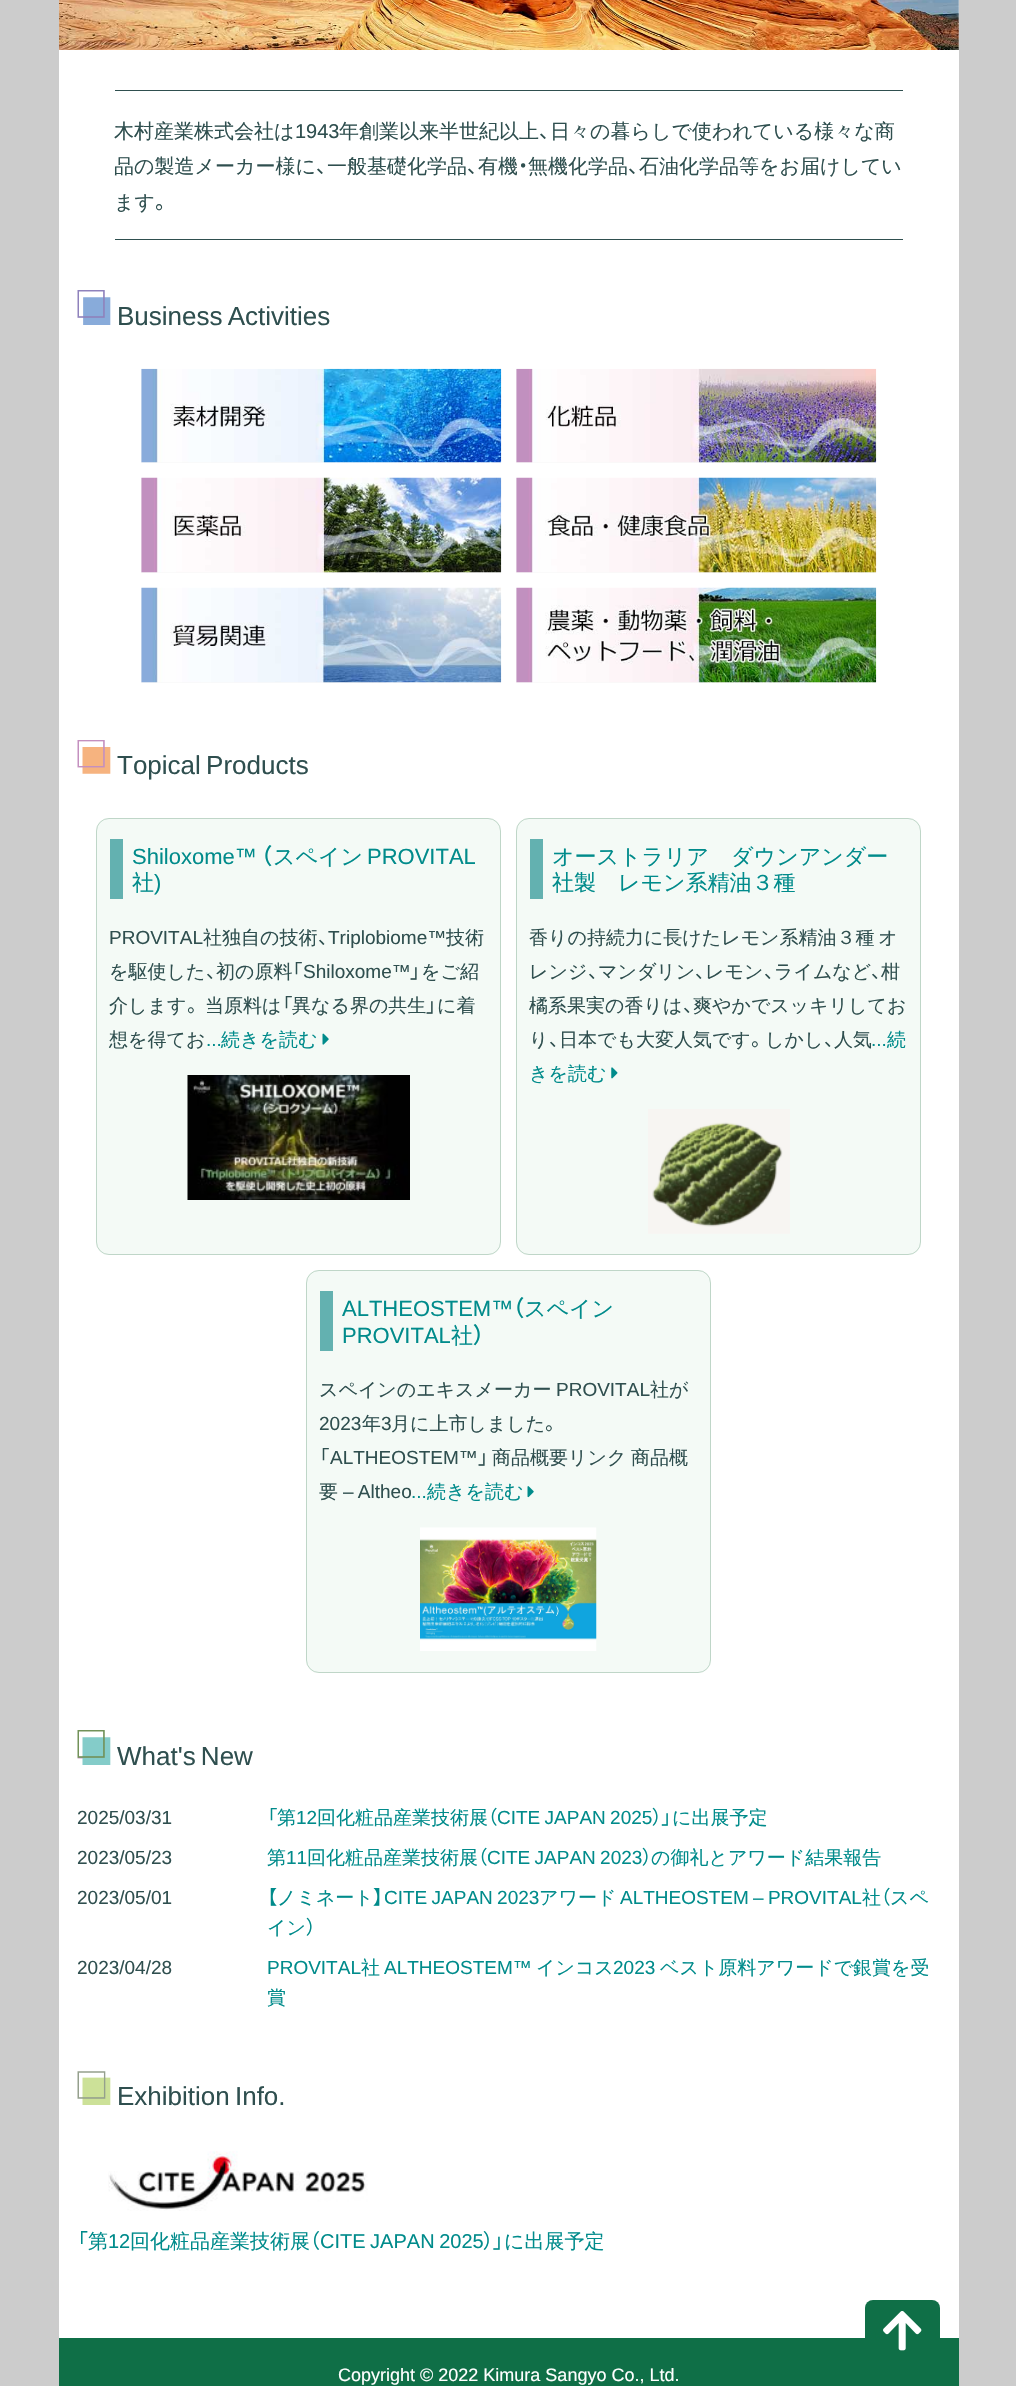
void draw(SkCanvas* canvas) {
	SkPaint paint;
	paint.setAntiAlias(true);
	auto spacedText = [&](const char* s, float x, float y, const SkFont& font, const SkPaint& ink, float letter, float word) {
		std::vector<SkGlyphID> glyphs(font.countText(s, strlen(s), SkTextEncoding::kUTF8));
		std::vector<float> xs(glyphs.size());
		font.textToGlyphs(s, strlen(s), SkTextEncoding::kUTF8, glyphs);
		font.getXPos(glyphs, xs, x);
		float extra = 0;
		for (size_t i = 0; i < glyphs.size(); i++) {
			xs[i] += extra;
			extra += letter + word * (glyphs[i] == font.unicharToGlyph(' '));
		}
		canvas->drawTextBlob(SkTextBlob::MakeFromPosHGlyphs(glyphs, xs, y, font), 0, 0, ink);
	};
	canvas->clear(0xffcccccc);
	paint.setColor(0xffffffff);
	canvas->drawRect(SkRect::MakeXYWH(59, 0, 900, 2338), paint);
	canvas->drawImageRect(SkImages::DeferredFromEncodedData(SkData::MakeFromFileName("img1.png")), SkRect::MakeXYWH(59, 0, 900, 50), SkSamplingOptions());
	paint.setColor(0xff2f4f4f);
	canvas->drawRect(SkRect::MakeXYWH(115, 90, 788, 1), paint);
	canvas->drawRect(SkRect::MakeXYWH(115, 239, 788, 1), paint);
	SkFont f1(fontMgr->matchFamilyStyle("WenQuanYi Zen Hei", SkFontStyle(500, SkFontStyle::kNormal_Width, SkFontStyle::kUpright_Slant)), 20);
	f1.setSubpixel(true);
	canvas->drawString("木村産業株式会社は", 114, 138, f1, paint);
	SkFont f2(fontMgr->matchFamilyStyle("Liberation Sans", SkFontStyle::Normal()), 20);
	f2.setSubpixel(true);
	canvas->drawString("1943", 295, 138, f2, paint);
	canvas->drawString("年創業以来半世紀以上", 339, 138, f1, paint);
	SkFont f3(fontMgr->matchFamilyStyle("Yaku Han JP", SkFontStyle::Normal()), 20);
	f3.setSubpixel(true);
	canvas->drawString("、", 539, 138, f3, paint);
	canvas->drawString("日々の暮らしで使われている様々な商", 550, 138, f1, paint);
	canvas->drawString("品の製造メーカー様に", 114, 173, f1, paint);
	canvas->drawString("一般基礎化学品", 327, 173, f1, paint);
	canvas->drawString("有機", 478, 173, f1, paint);
	canvas->drawString("・", 518, 173, f3, paint);
	canvas->drawString("無機化学品", 528, 173, f1, paint);
	canvas->drawString("石油化学品等をお届けしてい", 639, 173, f1, paint);
	canvas->drawString("、", 316, 173, f3, paint);
	canvas->drawString("、", 467, 173, f3, paint);
	canvas->drawString("、", 628, 173, f3, paint);
	canvas->drawString("ます", 114, 209, f1, paint);
	canvas->drawString("。", 155, 209, f3, paint);
	canvas->drawImageRect(SkImages::DeferredFromEncodedData(SkData::MakeFromFileName("img2.png")), SkRect::MakeXYWH(77, 290, 34, 35), SkSamplingOptions());
	SkFont f4(fontMgr->matchFamilyStyle("Liberation Sans", SkFontStyle::Normal()), 26);
	f4.setSubpixel(true);
	spacedText("Business Activities", 117, 325, f4, paint, 0, -2);
	paint.setColor(0xfff8f8f8);
	canvas->drawRect(SkRect::MakeXYWH(141, 369, 360, 94), paint);
	canvas->drawImageRect(SkImages::DeferredFromEncodedData(SkData::MakeFromFileName("img3.png")), SkRect::MakeXYWH(141, 368, 361, 95), SkSamplingOptions());
	canvas->drawRect(SkRect::MakeXYWH(516, 369, 360, 94), paint);
	canvas->drawImageRect(SkImages::DeferredFromEncodedData(SkData::MakeFromFileName("img4.png")), SkRect::MakeXYWH(516, 368, 361, 95), SkSamplingOptions());
	canvas->drawRect(SkRect::MakeXYWH(141, 478, 360, 95), paint);
	canvas->drawImageRect(SkImages::DeferredFromEncodedData(SkData::MakeFromFileName("img5.png")), SkRect::MakeXYWH(141, 477, 361, 96), SkSamplingOptions());
	canvas->drawRect(SkRect::MakeXYWH(516, 478, 360, 95), paint);
	canvas->drawImageRect(SkImages::DeferredFromEncodedData(SkData::MakeFromFileName("img6.png")), SkRect::MakeXYWH(516, 477, 361, 96), SkSamplingOptions());
	canvas->drawRect(SkRect::MakeXYWH(141, 588, 360, 95), paint);
	canvas->drawImageRect(SkImages::DeferredFromEncodedData(SkData::MakeFromFileName("img7.png")), SkRect::MakeXYWH(141, 587, 361, 96), SkSamplingOptions());
	canvas->drawRect(SkRect::MakeXYWH(516, 588, 360, 95), paint);
	canvas->drawImageRect(SkImages::DeferredFromEncodedData(SkData::MakeFromFileName("img8.png")), SkRect::MakeXYWH(516, 587, 361, 96), SkSamplingOptions());
	canvas->drawImageRect(SkImages::DeferredFromEncodedData(SkData::MakeFromFileName("img9.png")), SkRect::MakeXYWH(77, 740, 34, 34), SkSamplingOptions());
	paint.setColor(0xff2f4f4f);
	spacedText("Topical Products", 117, 774, f4, paint, 0, -2);
	paint.setColor(0xfff4faf6);
	canvas->drawRoundRect(SkRect::MakeXYWH(96, 818, 405, 437), 13, 13, paint);
	paint.setStroke(true);
	paint.setStrokeWidth(1);
	paint.setColor(0x9c9dc0aa);
	canvas->drawRoundRect(SkRect::MakeXYWH(96.5, 818.5, 404, 436), 12.5, 12.5, paint);
	paint.setStroke(false);
	paint.setColor(0xff63b1b0);
	canvas->drawRect(SkRect::MakeXYWH(110, 839, 13, 60), paint);
	SkFont f5(fontMgr->matchFamilyStyle("Liberation Sans", SkFontStyle::Normal()), 22);
	f5.setSubpixel(true);
	paint.setColor(0xff008b8b);
	canvas->drawString("Shiloxome™", 132, 864, f5, paint);
	SkFont f6(fontMgr->matchFamilyStyle("Yaku Han JP", SkFontStyle(500, SkFontStyle::kNormal_Width, SkFontStyle::kUpright_Slant)), 22);
	f6.setSubpixel(true);
	canvas->drawString("（", 261, 864, f6, paint);
	SkFont f7(fontMgr->matchFamilyStyle("WenQuanYi Zen Hei", SkFontStyle(500, SkFontStyle::kNormal_Width, SkFontStyle::kUpright_Slant)), 22);
	f7.setSubpixel(true);
	canvas->drawString("スペイン", 273, 864, f7, paint);
	canvas->drawString("PROVITAL", 367, 864, f5, paint);
	canvas->drawString("社", 132, 890, f7, paint);
	canvas->drawString(")", 154, 890, f5, paint);
	SkFont f8(fontMgr->matchFamilyStyle("Liberation Sans", SkFontStyle::Normal()), 19);
	f8.setSubpixel(true);
	paint.setColor(0xff2f4f4f);
	canvas->drawString("PROVITAL", 109, 944, f8, paint);
	SkFont f9(fontMgr->matchFamilyStyle("WenQuanYi Zen Hei", SkFontStyle(500, SkFontStyle::kNormal_Width, SkFontStyle::kUpright_Slant)), 19);
	f9.setSubpixel(true);
	canvas->drawString("社独自の技術", 203, 944, f9, paint);
	SkFont f10(fontMgr->matchFamilyStyle("Yaku Han JP", SkFontStyle::Normal()), 19);
	f10.setSubpixel(true);
	canvas->drawString("、", 318, 944, f10, paint);
	canvas->drawString("Triplobiome™", 328, 944, f8, paint);
	canvas->drawString("技術", 446, 944, f9, paint);
	canvas->drawString("を駆使した", 109, 978, f9, paint);
	canvas->drawString("、", 206, 978, f10, paint);
	canvas->drawString("初の原料", 216, 978, f9, paint);
	canvas->drawString("「", 292, 978, f10, paint);
	canvas->drawString("Shiloxome™", 303, 978, f8, paint);
	canvas->drawString("」", 410, 978, f10, paint);
	canvas->drawString("をご紹", 421, 978, f9, paint);
	canvas->drawString("介します", 109, 1012, f9, paint);
	canvas->drawString("。", 187, 1012, f10, paint);
	canvas->drawString("当原料は", 205, 1012, f9, paint);
	canvas->drawString("「", 282, 1012, f10, paint);
	canvas->drawString("異なる界の共生", 292, 1012, f9, paint);
	canvas->drawString("」", 426, 1012, f10, paint);
	canvas->drawString("に着", 437, 1012, f9, paint);
	canvas->drawString("想を得てお", 109, 1046, f9, paint);
	paint.setColor(0xff008b8b);
	canvas->drawString("...", 206, 1046, f8, paint);
	canvas->drawString("続きを読む", 221, 1046, f9, paint);
	canvas->drawImageRect(SkImages::DeferredFromEncodedData(SkData::MakeFromFileName("img10.png")), SkRect::MakeXYWH(322, 1033, 7, 12), SkSamplingOptions());
	canvas->drawImageRect(SkImages::DeferredFromEncodedData(SkData::MakeFromFileName("img11.png")), SkRect::MakeXYWH(187, 1075, 223, 125), SkSamplingOptions());
	paint.setColor(0xfff4faf6);
	canvas->drawRoundRect(SkRect::MakeXYWH(516, 818, 405, 437), 13, 13, paint);
	paint.setStroke(true);
	paint.setColor(0x9c9dc0aa);
	canvas->drawRoundRect(SkRect::MakeXYWH(516.5, 818.5, 404, 436), 12.5, 12.5, paint);
	paint.setStroke(false);
	paint.setColor(0xff63b1b0);
	canvas->drawRect(SkRect::MakeXYWH(530, 839, 13, 60), paint);
	paint.setColor(0xff008b8b);
	canvas->drawString("オーストラリア　ダウンアンダー", 552, 864, f7, paint);
	canvas->drawString("社製　レモン系精油３種", 552, 890, f7, paint);
	paint.setColor(0xff2f4f4f);
	spacedText("香りの持続力に長けたレモン系精油３種 オ", 529, 944, f9, paint, 0, -2);
	canvas->drawString("レンジ", 529, 978, f9, paint);
	canvas->drawString("、", 588, 978, f10, paint);
	canvas->drawString("マンダリン", 598, 978, f9, paint);
	canvas->drawString("、", 695, 978, f10, paint);
	canvas->drawString("レモン", 705, 978, f9, paint);
	canvas->drawString("、", 764, 978, f10, paint);
	canvas->drawString("ライムなど", 774, 978, f9, paint);
	canvas->drawString("、", 871, 978, f10, paint);
	canvas->drawString("柑", 881, 978, f9, paint);
	canvas->drawString("橘系果実の香りは", 529, 1012, f9, paint);
	canvas->drawString("、", 683, 1012, f10, paint);
	canvas->drawString("爽やかでスッキリしてお", 693, 1012, f9, paint);
	canvas->drawString("日本でも大変人気です", 559, 1046, f9, paint);
	paint.setColor(0xff008b8b);
	canvas->drawString("...", 871, 1046, f8, paint);
	canvas->drawString("続", 887, 1046, f9, paint);
	canvas->drawString("きを読む", 529, 1080, f9, paint);
	canvas->drawImageRect(SkImages::DeferredFromEncodedData(SkData::MakeFromFileName("img12.png")), SkRect::MakeXYWH(611, 1067, 7, 12), SkSamplingOptions());
	paint.setColor(0xff2f4f4f);
	canvas->drawString("り", 529, 1046, f9, paint);
	canvas->drawString("、", 549, 1046, f10, paint);
	canvas->drawString("。", 751, 1046, f10, paint);
	canvas->drawString("しかし", 765, 1046, f9, paint);
	canvas->drawString("、", 824, 1046, f10, paint);
	canvas->drawString("人気", 834, 1046, f9, paint);
	canvas->drawImageRect(SkImages::DeferredFromEncodedData(SkData::MakeFromFileName("img13.png")), SkRect::MakeXYWH(648, 1109, 142, 125), SkSamplingOptions());
	paint.setColor(0xfff4faf6);
	canvas->drawRoundRect(SkRect::MakeXYWH(306, 1270, 405, 403), 13, 13, paint);
	paint.setStroke(true);
	paint.setColor(0x9c9dc0aa);
	canvas->drawRoundRect(SkRect::MakeXYWH(306.5, 1270.5, 404, 402), 12.5, 12.5, paint);
	paint.setStroke(false);
	paint.setColor(0xff63b1b0);
	canvas->drawRect(SkRect::MakeXYWH(320, 1291, 13, 60), paint);
	paint.setColor(0xff008b8b);
	canvas->drawString("ALTHEOSTEM™", 342, 1316, f5, paint);
	canvas->drawString("（", 513, 1316, f6, paint);
	canvas->drawString("スペイン", 524, 1316, f7, paint);
	canvas->drawString("PROVITAL", 342, 1343, f5, paint);
	canvas->drawString("社", 451, 1343, f7, paint);
	canvas->drawString("）", 473, 1343, f6, paint);
	paint.setColor(0xff2f4f4f);
	canvas->drawString("スペインのエキスメーカー", 319, 1396, f9, paint);
	canvas->drawString("PROVITAL", 556, 1396, f8, paint);
	canvas->drawString("社が", 650, 1396, f9, paint);
	canvas->drawString("2023", 319, 1430, f8, paint);
	canvas->drawString("年", 362, 1430, f9, paint);
	canvas->drawString("3", 381, 1430, f8, paint);
	canvas->drawString("月に上市しました", 391, 1430, f9, paint);
	canvas->drawString("。", 545, 1430, f10, paint);
	canvas->drawString("「", 319, 1464, f10, paint);
	canvas->drawString("ALTHEOSTEM™", 330, 1464, f8, paint);
	canvas->drawString("」", 478, 1464, f10, paint);
	spacedText("商品概要リンク 商品概", 492, 1464, f9, paint, 0, -1);
	canvas->drawString("要", 319, 1498, f9, paint);
	spacedText("– Altheo", 343, 1498, f8, paint, 0, -1);
	paint.setColor(0xff008b8b);
	canvas->drawString("...", 411, 1498, f8, paint);
	canvas->drawString("続きを読む", 427, 1498, f9, paint);
	canvas->drawImageRect(SkImages::DeferredFromEncodedData(SkData::MakeFromFileName("img14.png")), SkRect::MakeXYWH(527, 1486, 7, 12), SkSamplingOptions());
	canvas->drawImageRect(SkImages::DeferredFromEncodedData(SkData::MakeFromFileName("img15.png")), SkRect::MakeXYWH(420, 1527, 177, 124), SkSamplingOptions());
	canvas->drawImageRect(SkImages::DeferredFromEncodedData(SkData::MakeFromFileName("img16.png")), SkRect::MakeXYWH(77, 1730, 34, 35), SkSamplingOptions());
	paint.setColor(0xff2f4f4f);
	spacedText("What's New", 117, 1765, f4, paint, 0, -2);
	canvas->drawString("2025/03/31", 77, 1824, f8, paint);
	paint.setColor(0xff008b8b);
	canvas->drawString("「", 267, 1824, f10, paint);
	canvas->drawString("第", 277, 1824, f9, paint);
	canvas->drawString("12", 296, 1824, f8, paint);
	canvas->drawString("回化粧品産業技術展", 317, 1824, f9, paint);
	canvas->drawString("（", 488, 1824, f10, paint);
	spacedText("CITE JAPAN 2025", 497, 1824, f8, paint, 0, -1);
	canvas->drawString("）」", 652, 1824, f10, paint);
	canvas->drawString("に出展予定", 672, 1824, f9, paint);
	paint.setColor(0xff2f4f4f);
	canvas->drawString("2023/05/23", 77, 1864, f8, paint);
	paint.setColor(0xff008b8b);
	canvas->drawString("第", 267, 1864, f9, paint);
	canvas->drawString("11", 286, 1864, f8, paint);
	canvas->drawString("回化粧品産業技術展", 307, 1864, f9, paint);
	canvas->drawString("（", 478, 1864, f10, paint);
	spacedText("CITE JAPAN 2023", 487, 1864, f8, paint, 0, -1);
	canvas->drawString("）", 642, 1864, f10, paint);
	canvas->drawString("の御礼とアワード結果報告", 651, 1864, f9, paint);
	paint.setColor(0xff2f4f4f);
	canvas->drawString("2023/05/01", 77, 1904, f8, paint);
	paint.setColor(0xff008b8b);
	canvas->drawString("【", 267, 1904, f10, paint);
	canvas->drawString("ノミネート", 277, 1904, f9, paint);
	canvas->drawString("】", 373, 1904, f10, paint);
	spacedText("CITE JAPAN 2023", 384, 1904, f8, paint, 0, -1);
	canvas->drawString("アワード", 539, 1904, f9, paint);
	spacedText("ALTHEOSTEM – PROVITAL", 620, 1904, f8, paint, 0, -1);
	canvas->drawString("社", 862, 1904, f9, paint);
	canvas->drawString("（", 881, 1904, f10, paint);
	canvas->drawString("スペ", 890, 1904, f9, paint);
	canvas->drawString("イン", 267, 1934, f9, paint);
	canvas->drawString("）", 306, 1934, f10, paint);
	paint.setColor(0xff2f4f4f);
	canvas->drawString("2023/04/28", 77, 1974, f8, paint);
	paint.setColor(0xff008b8b);
	canvas->drawString("PROVITAL", 267, 1974, f8, paint);
	canvas->drawString("社", 361, 1974, f9, paint);
	canvas->drawString("ALTHEOSTEM™", 384, 1974, f8, paint);
	canvas->drawString("インコス", 536, 1974, f9, paint);
	canvas->drawString("2023", 613, 1974, f8, paint);
	canvas->drawString("ベスト原料アワードで銀賞を受", 660, 1974, f9, paint);
	canvas->drawString("賞", 267, 2004, f9, paint);
	canvas->drawImageRect(SkImages::DeferredFromEncodedData(SkData::MakeFromFileName("img17.png")), SkRect::MakeXYWH(77, 2071, 34, 34), SkSamplingOptions());
	paint.setColor(0xff2f4f4f);
	spacedText("Exhibition Info.", 117, 2105, f4, paint, 0, -2);
	canvas->drawImageRect(SkImages::DeferredFromEncodedData(SkData::MakeFromFileName("img18.png")), SkRect::MakeXYWH(108, 2151, 260, 60), SkSamplingOptions());
	paint.setColor(0xff008b8b);
	canvas->drawString("「", 77, 2248, f3, paint);
	canvas->drawString("第", 88, 2248, f1, paint);
	canvas->drawString("12", 108, 2248, f2, paint);
	canvas->drawString("回化粧品産業技術展", 130, 2248, f1, paint);
	canvas->drawString("（", 310, 2248, f3, paint);
	spacedText("CITE JAPAN 2025", 320, 2248, f2, paint, 0, -1);
	canvas->drawString("）」", 483, 2248, f3, paint);
	canvas->drawString("に出展予定", 504, 2248, f1, paint);
	paint.setColor(0xff0f6f47);
	canvas->drawRect(SkRect::MakeXYWH(59, 2338, 900, 48), paint);
	canvas->drawRoundRect(SkRect::MakeXYWH(865, 2300, 75, 73), 8, 8, paint);
	canvas->drawImageRect(SkImages::DeferredFromEncodedData(SkData::MakeFromFileName("img19.png")), SkRect::MakeXYWH(883, 2311, 39, 40), SkSamplingOptions());
	SkFont f11(fontMgr->matchFamilyStyle("Liberation Sans", SkFontStyle::Normal()), 18);
	f11.setSubpixel(true);
	paint.setColor(0xffffffff);
	canvas->drawString("Copyright © 2022 Kimura Sangyo Co., Ltd.", 338, 2381, f11, paint);
}
